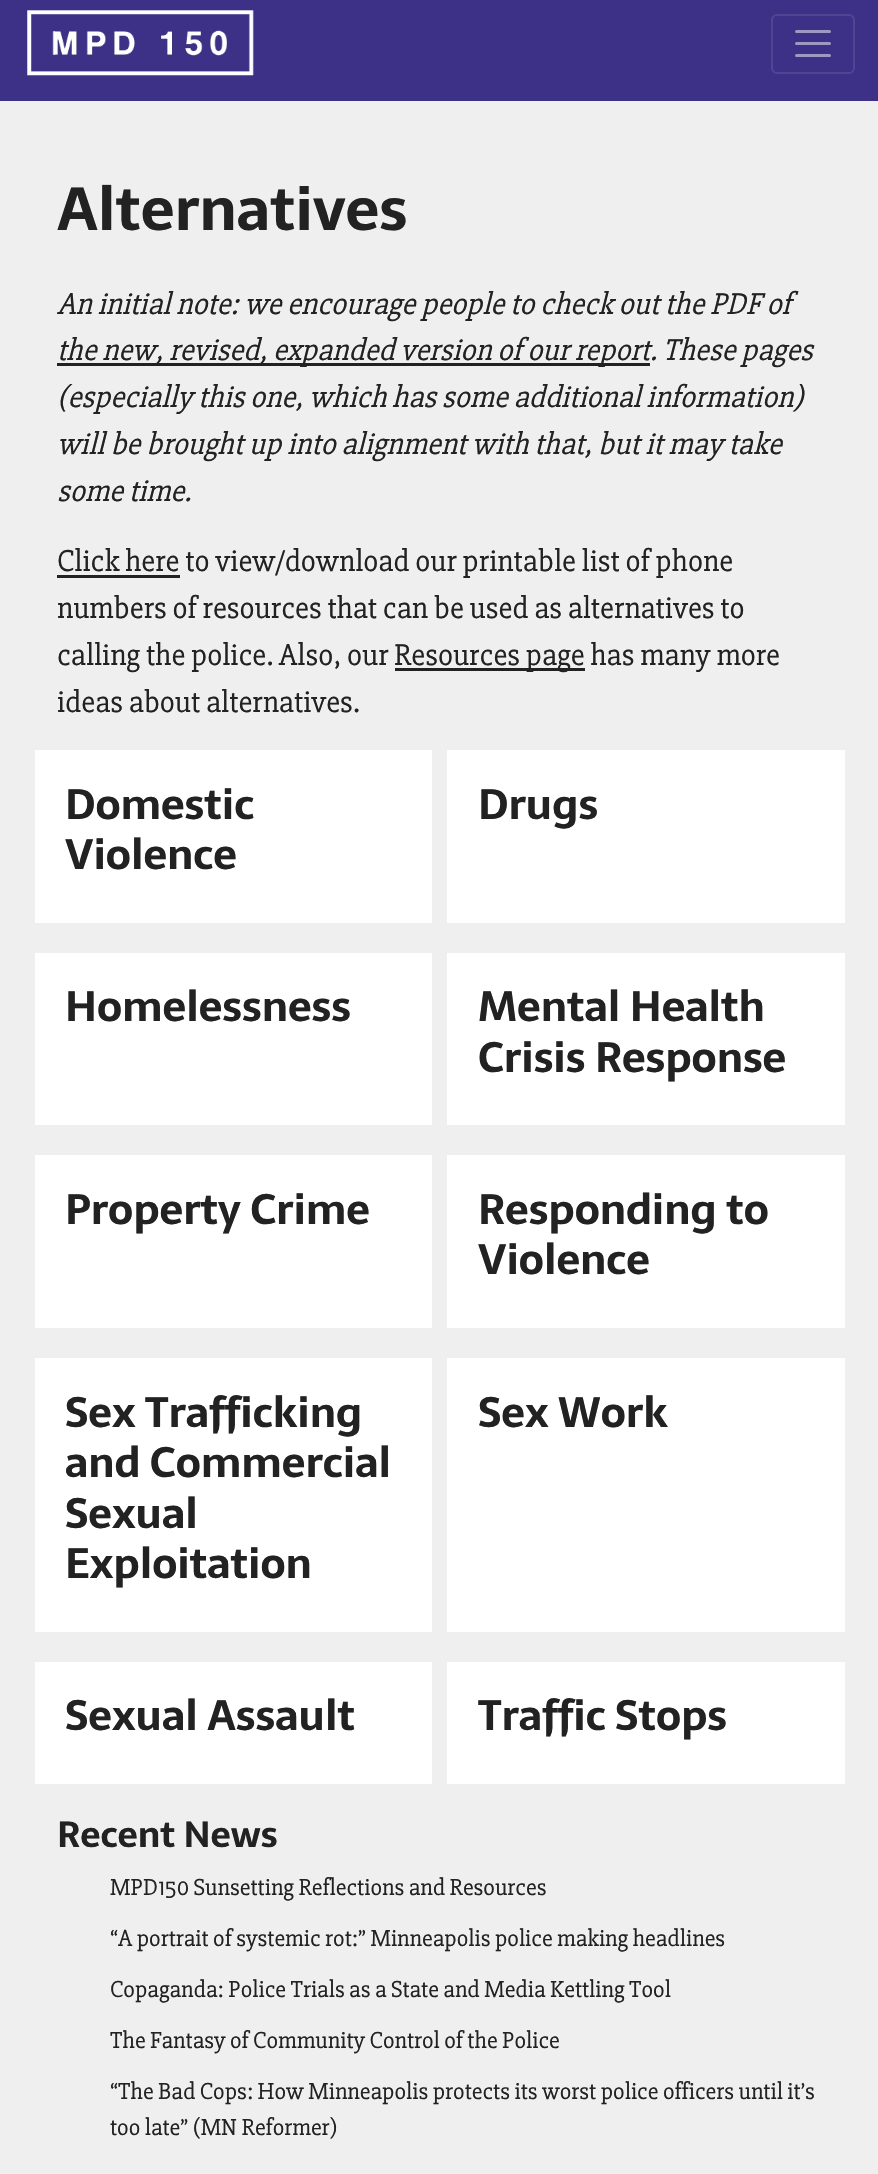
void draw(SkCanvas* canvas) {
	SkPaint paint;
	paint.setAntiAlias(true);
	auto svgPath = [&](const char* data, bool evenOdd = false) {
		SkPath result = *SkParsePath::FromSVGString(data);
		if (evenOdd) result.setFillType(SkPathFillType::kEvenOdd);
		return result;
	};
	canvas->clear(0xffefefef);
	paint.setColor(0xff3c3087);
	canvas->drawRect(SkRect::MakeXYWH(0, 0, 878, 101), paint);
	canvas->drawImageRect(SkImages::DeferredFromEncodedData(SkData::MakeFromFileName("img1.png")), SkRect::MakeXYWH(27, 10, 227, 66), SkSamplingOptions());
	paint.setStroke(true);
	paint.setStrokeWidth(2);
	paint.setColor(0xff504593);
	canvas->drawRoundRect(SkRect::MakeXYWH(772, 15, 82, 58), 5, 5, paint);
	paint.setStrokeWidth(3);
	paint.setStrokeCap(SkPaint::kRound_Cap);
	paint.setColor(0xff9e98c3);
	canvas->drawPath(svgPath("M796.5 31.5H829.5M796.5 43.5H829.5M796.5 55.5H829.5"), paint);
	SkFont f1(fontMgr->matchFamilyStyle("Sarala", SkFontStyle::Bold()), 60);
	f1.setSubpixel(true);
	paint.setStroke(false);
	paint.setColor(0xff222222);
	canvas->drawString("Alternatives", 57, 230, f1, paint);
	SkFont f2(fontMgr->matchFamilyStyle("Slabo 27px", SkFontStyle::Italic()), 31.2);
	f2.setSubpixel(true);
	canvas->drawString("An initial note: we encourage people to check out the PDF of", 57, 314, f2, paint);
	canvas->drawRect(SkRect::MakeXYWH(57, 363, 593, 3), paint);
	canvas->drawString("the new, revised, expanded version of our report. These pages", 57, 360, f2, paint);
	canvas->drawString("(especially this one, which has some additional information)", 57, 407, f2, paint);
	canvas->drawString("will be brought up into alignment with that, but it may take", 57, 454, f2, paint);
	canvas->drawString("some time.", 57, 501, f2, paint);
	canvas->drawRect(SkRect::MakeXYWH(57, 575, 123, 3), paint);
	SkFont f3(fontMgr->matchFamilyStyle("Slabo 27px", SkFontStyle::Normal()), 31.2);
	f3.setSubpixel(true);
	canvas->drawString("Click here to view/download our printable list of phone", 57, 571, f3, paint);
	canvas->drawString("numbers of resources that can be used as alternatives to", 57, 618, f3, paint);
	canvas->drawString("calling the police. Also, our", 57, 665, f3, paint);
	canvas->drawRect(SkRect::MakeXYWH(395, 668, 190, 3), paint);
	canvas->drawString("Resources page has many more", 394, 665, f3, paint);
	canvas->drawString("ideas about alternatives.", 57, 712, f3, paint);
	paint.setColor(0xffffffff);
	canvas->drawRect(SkRect::MakeXYWH(35, 750, 397, 173), paint);
	SkFont f4(fontMgr->matchFamilyStyle("Sarala", SkFontStyle::Bold()), 42);
	f4.setSubpixel(true);
	paint.setColor(0xff222222);
	canvas->drawString("Domestic", 65, 819, f4, paint);
	canvas->drawString("Violence", 65, 869, f4, paint);
	paint.setColor(0xffffffff);
	canvas->drawRect(SkRect::MakeXYWH(447, 750, 398, 173), paint);
	paint.setColor(0xff222222);
	canvas->drawString("Drugs", 478, 819, f4, paint);
	paint.setColor(0xffffffff);
	canvas->drawRect(SkRect::MakeXYWH(35, 953, 397, 172), paint);
	paint.setColor(0xff222222);
	canvas->drawString("Homelessness", 65, 1021, f4, paint);
	paint.setColor(0xffffffff);
	canvas->drawRect(SkRect::MakeXYWH(447, 953, 398, 172), paint);
	paint.setColor(0xff222222);
	canvas->drawString("Mental Health", 478, 1021, f4, paint);
	canvas->drawString("Crisis Response", 478, 1072, f4, paint);
	paint.setColor(0xffffffff);
	canvas->drawRect(SkRect::MakeXYWH(35, 1155, 397, 173), paint);
	paint.setColor(0xff222222);
	canvas->drawString("Property Crime", 65, 1224, f4, paint);
	paint.setColor(0xffffffff);
	canvas->drawRect(SkRect::MakeXYWH(447, 1155, 398, 173), paint);
	paint.setColor(0xff222222);
	canvas->drawString("Responding to", 478, 1224, f4, paint);
	canvas->drawString("Violence", 478, 1274, f4, paint);
	paint.setColor(0xffffffff);
	canvas->drawRect(SkRect::MakeXYWH(35, 1358, 397, 274), paint);
	paint.setColor(0xff222222);
	canvas->drawString("Sex Trafficking", 65, 1427, f4, paint);
	canvas->drawString("and Commercial", 65, 1477, f4, paint);
	canvas->drawString("Sexual", 65, 1528, f4, paint);
	canvas->drawString("Exploitation", 65, 1578, f4, paint);
	paint.setColor(0xffffffff);
	canvas->drawRect(SkRect::MakeXYWH(447, 1358, 398, 274), paint);
	paint.setColor(0xff222222);
	canvas->drawString("Sex Work", 478, 1427, f4, paint);
	paint.setColor(0xffffffff);
	canvas->drawRect(SkRect::MakeXYWH(35, 1662, 397, 122), paint);
	paint.setColor(0xff222222);
	canvas->drawString("Sexual Assault", 65, 1730, f4, paint);
	paint.setColor(0xffffffff);
	canvas->drawRect(SkRect::MakeXYWH(447, 1662, 398, 122), paint);
	paint.setColor(0xff222222);
	canvas->drawString("Traffic Stops", 478, 1730, f4, paint);
	SkFont f5(fontMgr->matchFamilyStyle("Sarala", SkFontStyle::Bold()), 36);
	f5.setSubpixel(true);
	canvas->drawString("Recent News", 57, 1847, f5, paint);
	SkFont f6(fontMgr->matchFamilyStyle("Slabo 27px", SkFontStyle::Normal()), 24);
	f6.setSubpixel(true);
	canvas->drawString("MPD150 Sunsetting Reflections and Resources", 110, 1895, f6, paint);
	canvas->drawString("“A portrait of systemic rot:” Minneapolis police making headlines", 110, 1946, f6, paint);
	canvas->drawString("Copaganda: Police Trials as a State and Media Kettling Tool", 110, 1997, f6, paint);
	canvas->drawString("The Fantasy of Community Control of the Police", 110, 2048, f6, paint);
	canvas->drawString("“The Bad Cops: How Minneapolis protects its worst police officers until it’s", 110, 2099, f6, paint);
	canvas->drawString("too late” (MN Reformer)", 110, 2135, f6, paint);
}
